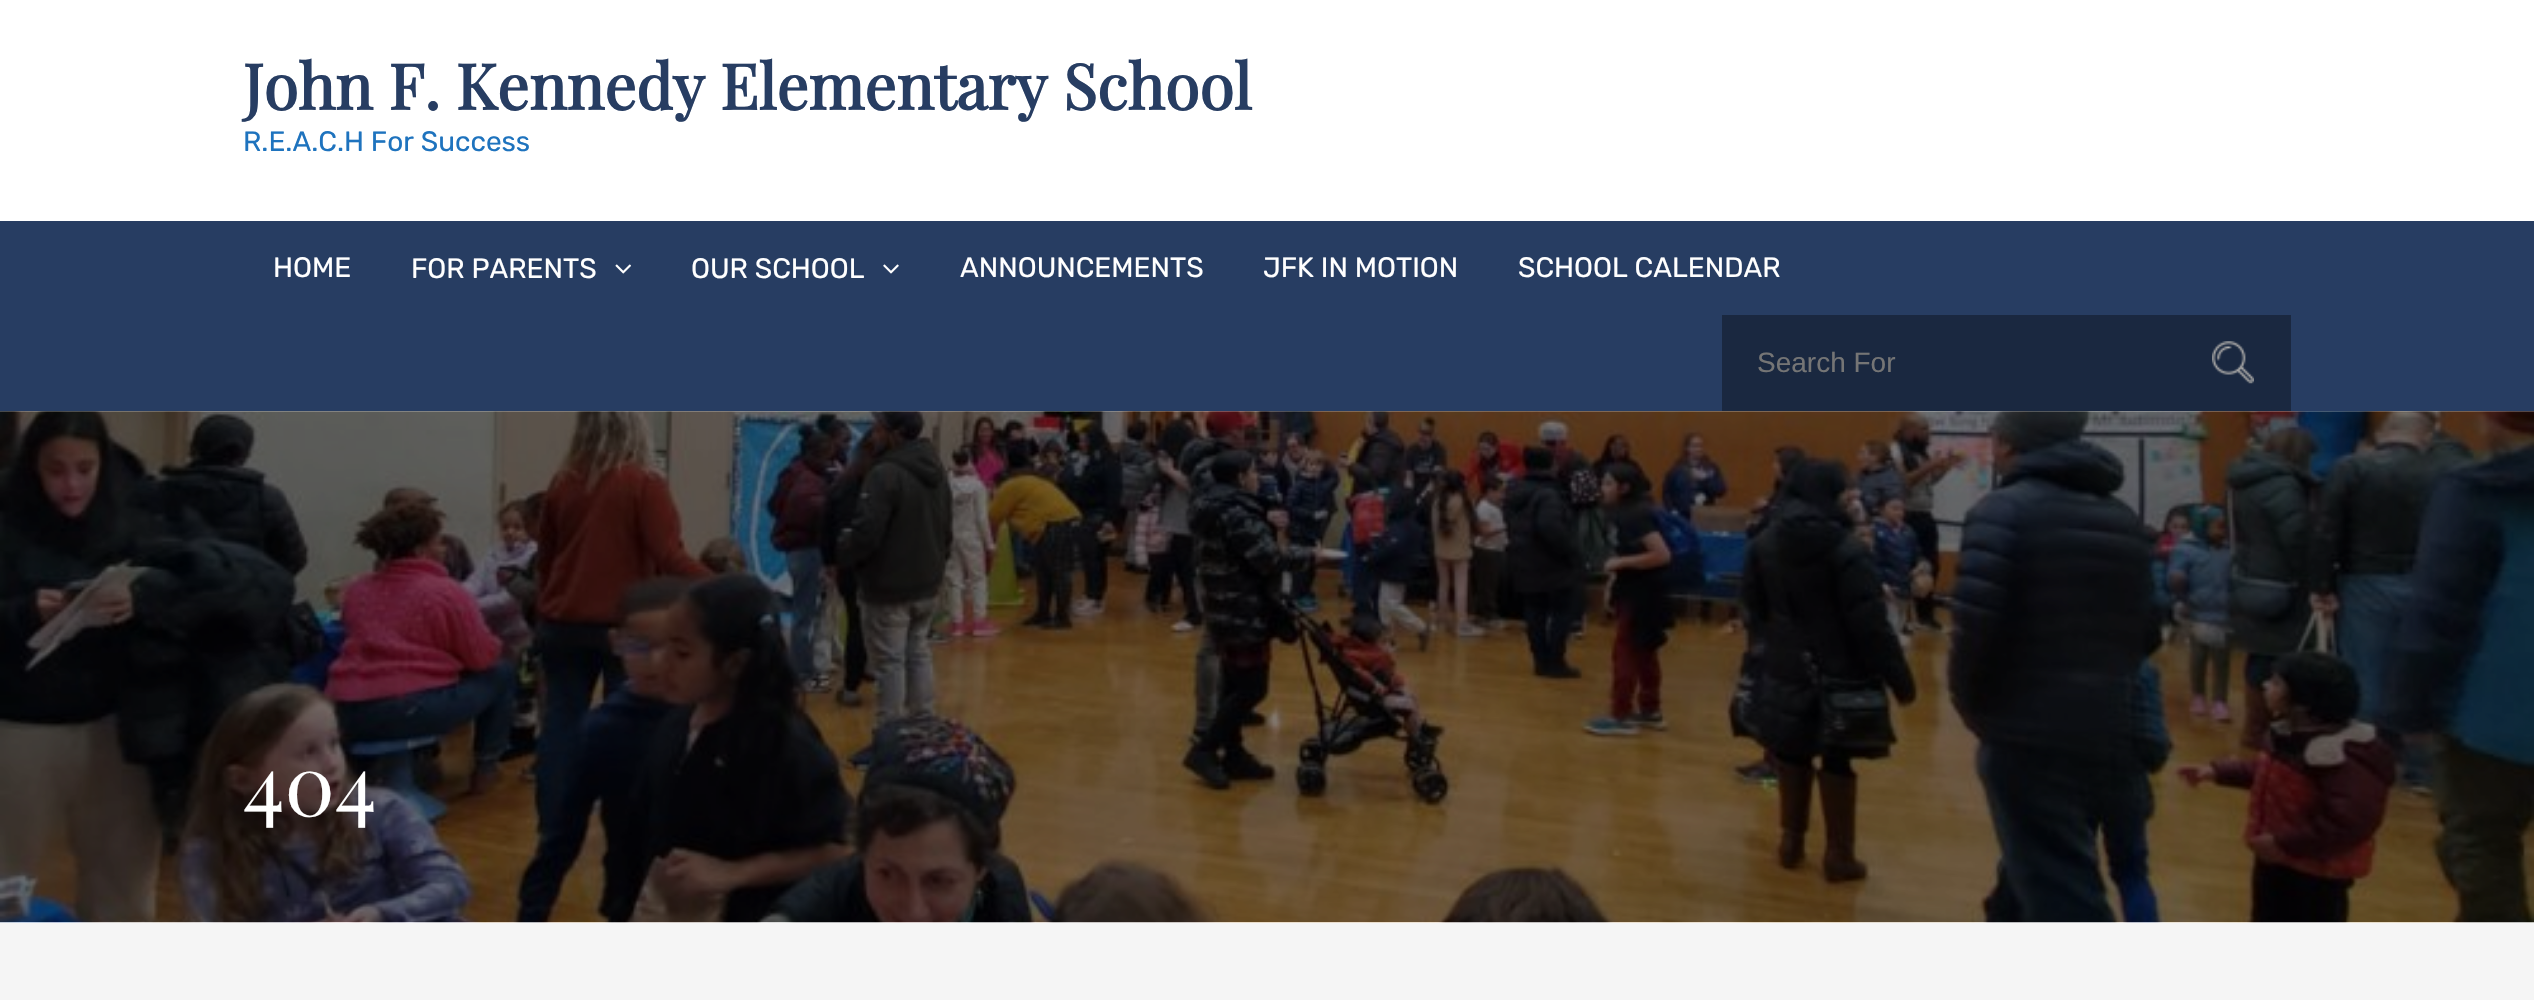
void draw(SkCanvas* canvas) {
	SkPaint paint;
	paint.setAntiAlias(true);
	canvas->clear(0xfff5f5f5);
	paint.setColor(0xffffffff);
	canvas->drawRect(SkRect::MakeXYWH(0, 0, 2534, 221), paint);
	SkFont f1(fontMgr->matchFamilyStyle("Playfair Display", SkFontStyle::Bold()), 63);
	f1.setSubpixel(true);
	paint.setColor(0xff273d62);
	canvas->drawString("John F. Kennedy Elementary School", 243, 110, f1, paint);
	SkFont f2(fontMgr->matchFamilyStyle("Rubik", SkFontStyle(300, SkFontStyle::kNormal_Width, SkFontStyle::kUpright_Slant)), 28);
	f2.setSubpixel(true);
	paint.setColor(0xff1e73be);
	canvas->drawString("R.E.A.C.H For Success", 243, 151, f2, paint);
	paint.setColor(0xff273d62);
	canvas->drawRect(SkRect::MakeXYWH(0, 221, 2534, 190), paint);
	paint.setColor(0xffffffff);
	canvas->drawString("HOME", 273, 277, f2, paint);
	canvas->drawString("FOR PARENTS", 411, 278, f2, paint);
	canvas->drawImageRect(SkImages::DeferredFromEncodedData(SkData::MakeFromFileName("img1.png")), SkRect::MakeXYWH(615, 264, 16, 10), SkSamplingOptions());
	canvas->drawString("OUR SCHOOL", 691, 278, f2, paint);
	canvas->drawImageRect(SkImages::DeferredFromEncodedData(SkData::MakeFromFileName("img2.png")), SkRect::MakeXYWH(883, 264, 16, 10), SkSamplingOptions());
	canvas->drawString("ANNOUNCEMENTS", 960, 277, f2, paint);
	canvas->drawString("JFK IN MOTION", 1263, 277, f2, paint);
	canvas->drawString("SCHOOL CALENDAR", 1518, 277, f2, paint);
	paint.setColor(0xff1a2840);
	canvas->drawRect(SkRect::MakeXYWH(1722, 315, 569, 96), paint);
	SkFont f3(fontMgr->matchFamilyStyle("Liberation Sans", SkFontStyle::Normal()), 28);
	f3.setSubpixel(true);
	paint.setColor(0xff757575);
	canvas->drawString("Search For", 1757, 372, f3, paint);
	canvas->drawImageRect(SkImages::DeferredFromEncodedData(SkData::MakeFromFileName("img3.png")), SkRect::MakeXYWH(2212, 341, 42, 43), SkSamplingOptions());
	canvas->drawImageRect(SkImages::DeferredFromEncodedData(SkData::MakeFromFileName("img4.png")), SkRect::MakeXYWH(0, 411, 2534, 512), SkSamplingOptions());
	SkFont f4(fontMgr->matchFamilyStyle("Playfair Display", SkFontStyle::Normal()), 84);
	f4.setSubpixel(true);
	paint.setColor(0xffffffff);
	canvas->drawString("404", 243, 816, f4, paint);
}
